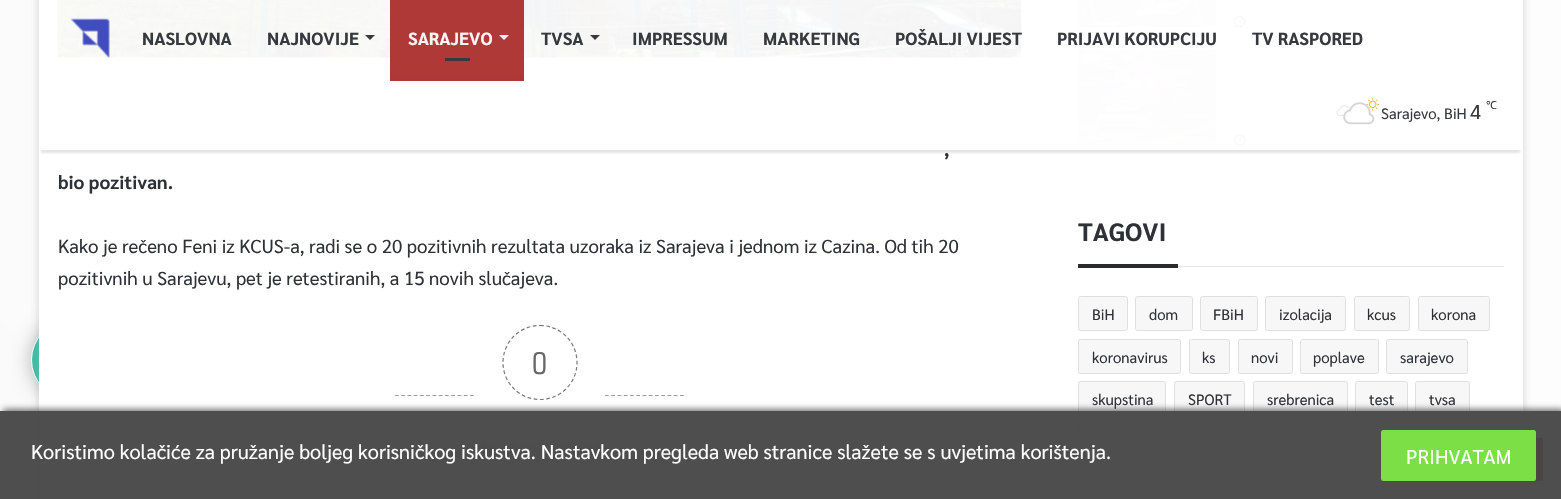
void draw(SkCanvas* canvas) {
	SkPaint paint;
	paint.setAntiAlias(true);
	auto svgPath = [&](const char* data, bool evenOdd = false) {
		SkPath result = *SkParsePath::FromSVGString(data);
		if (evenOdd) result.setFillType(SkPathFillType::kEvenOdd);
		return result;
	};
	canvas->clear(0xffffffff);
	{
		const SkColor colors[] = {0xfff7f7f7, 0xffffffff};
		const float stops[] = {0, 1};
		const SkPoint ends[] = {{-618, 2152}, {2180, -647}};
		paint.setShader(SkGradientShader::MakeLinear(ends, colors, stops, 2, SkTileMode::kClamp));
		paint.setAlpha(255);
	}
	canvas->drawRect(SkRect::MakeXYWH(0, 0, 1561, 499), paint);
	paint.setShader(nullptr);
	paint.setColor(0xffb2b2b2);
	paint.setMaskFilter(SkMaskFilter::MakeBlur(kNormal_SkBlurStyle, 9.5));
	canvas->drawRoundRect(SkRect::MakeXYWH(31, 320, 80, 80), 40, 40, paint);
	paint.setMaskFilter(nullptr);
	paint.setColor(0xff33c0a4);
	canvas->drawCircle(71, 360, 39.5, paint);
	paint.setStroke(true);
	paint.setStrokeWidth(1);
	paint.setColor(0xffffffff);
	canvas->drawCircle(71, 360, 39.5, paint);
	paint.setStroke(false);
	paint.setColor(0x80ababab);
	paint.setMaskFilter(SkMaskFilter::MakeBlur(kNormal_SkBlurStyle, 4.5));
	canvas->drawRect(SkRect::MakeXYWH(39, -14, 1484, 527), paint);
	paint.setMaskFilter(nullptr);
	paint.setColor(0xffffffff);
	canvas->drawRect(SkRect::MakeXYWH(39, 0, 1484, 499), paint);
	canvas->drawImageRect(SkImages::DeferredFromEncodedData(SkData::MakeFromFileName("img6.png")), SkRect::MakeXYWH(57, 0, 965, 58), SkSamplingOptions());
	canvas->drawImageRect(SkImages::DeferredFromEncodedData(SkData::MakeFromFileName("img8.png")), SkRect::MakeXYWH(1078, 0, 138, 27), SkSamplingOptions());
	canvas->drawImageRect(SkImages::DeferredFromEncodedData(SkData::MakeFromFileName("img9.png")), SkRect::MakeXYWH(1234, 15, 12, 13), SkSamplingOptions());
	canvas->drawImageRect(SkImages::DeferredFromEncodedData(SkData::MakeFromFileName("img10.png")), SkRect::MakeXYWH(1078, 49, 138, 96), SkSamplingOptions());
	canvas->drawImageRect(SkImages::DeferredFromEncodedData(SkData::MakeFromFileName("img11.png")), SkRect::MakeXYWH(1234, 134, 12, 13), SkSamplingOptions());
	canvas->save();
	canvas->clipRect(SkRect::MakeXYWH(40, 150, 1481, 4));
	paint.setColor(0x1a000000);
	paint.setMaskFilter(SkMaskFilter::MakeBlur(kNormal_SkBlurStyle, 1));
	canvas->drawRect(SkRect::MakeXYWH(41, 8, 1479, 145), paint);
	paint.setMaskFilter(nullptr);
	canvas->restore();
	paint.setColor(0xf2ffffff);
	canvas->drawRect(SkRect::MakeXYWH(57, 0, 1189, 147), paint);
	canvas->drawImageRect(SkImages::DeferredFromEncodedData(SkData::MakeFromFileName("img1.png")), SkRect::MakeXYWH(70, 18, 40, 40), SkSamplingOptions());
	SkFont f1(fontMgr->matchFamilyStyle("Sarabun", SkFontStyle::Bold()), 17.5);
	f1.setSubpixel(true);
	paint.setColor(0xff36393e);
	canvas->drawString("NASLOVNA", 142, 45, f1, paint);
	canvas->drawString("NAJNOVIJE", 267, 45, f1, paint);
	canvas->drawPath(svgPath("M365 35H375L370 40Z"), paint);
	paint.setColor(0xffae3837);
	canvas->drawRect(SkRect::MakeXYWH(390, 75, 134, 6), paint);
	paint.setColor(0xf2aa2e2c);
	canvas->drawRect(SkRect::MakeXYWH(390, 0, 134, 75), paint);
	paint.setColor(0xfffbf5f5);
	canvas->drawString("SARAJEVO", 408, 45, f1, paint);
	paint.setColor(0xffffffff);
	canvas->drawPath(svgPath("M499 35H509L504 40Z"), paint);
	paint.setColor(0xff37393e);
	canvas->drawRect(SkRect::MakeXYWH(445, 58, 25, 3), paint);
	paint.setColor(0xff36393e);
	canvas->drawString("TVSA", 541, 45, f1, paint);
	canvas->drawPath(svgPath("M590 35H600L595 40Z"), paint);
	canvas->drawString("IMPRESSUM", 632, 45, f1, paint);
	canvas->drawString("MARKETING", 763, 45, f1, paint);
	canvas->drawString("POŠALJI VIJEST", 895, 45, f1, paint);
	canvas->drawString("PRIJAVI KORUPCIJU", 1057, 45, f1, paint);
	canvas->drawString("TV RASPORED", 1252, 45, f1, paint);
	canvas->drawImageRect(SkImages::DeferredFromEncodedData(SkData::MakeFromFileName("img2.png")), SkRect::MakeXYWH(1366, 97, 14, 14), SkSamplingOptions());
	canvas->drawImageRect(SkImages::DeferredFromEncodedData(SkData::MakeFromFileName("img5.png")), SkRect::MakeXYWH(1336, 105, 16, 11), SkSamplingOptions());
	canvas->drawImageRect(SkImages::DeferredFromEncodedData(SkData::MakeFromFileName("img4.png")), SkRect::MakeXYWH(1343, 104, 27, 12), SkSamplingOptions());
	canvas->drawImageRect(SkImages::DeferredFromEncodedData(SkData::MakeFromFileName("img3.png")), SkRect::MakeXYWH(1343, 102, 32, 23), SkSamplingOptions());
	SkFont f2(fontMgr->matchFamilyStyle("Sarabun", SkFontStyle::Normal()), 15);
	f2.setSubpixel(true);
	canvas->drawString("Sarajevo, BiH", 1381, 119, f2, paint);
	SkFont f3(fontMgr->matchFamilyStyle("Sarabun", SkFontStyle::Normal()), 20);
	f3.setSubpixel(true);
	canvas->drawString("4", 1470, 119, f3, paint);
	SkFont f4(fontMgr->matchFamilyStyle("Noto Sans", SkFontStyle::Normal()), 11);
	f4.setSubpixel(true);
	canvas->drawString("℃", 1486, 109, f4, paint);
	SkFont f5(fontMgr->matchFamilyStyle("Sarabun", SkFontStyle::Bold()), 18.75);
	f5.setSubpixel(true);
	paint.setColor(0xff2e3136);
	canvas->drawString(",", 944, 156, f5, paint);
	canvas->drawString("bio pozitivan.", 58, 189, f5, paint);
	SkFont f6(fontMgr->matchFamilyStyle("Sarabun", SkFontStyle::Normal()), 18.75);
	f6.setSubpixel(true);
	canvas->drawString("Kako je rečeno Feni iz KCUS-a, radi se o 20 pozitivnih rezultata uzoraka iz Sarajeva i jednom iz Cazina. Od tih 20", 58, 253, f6, paint);
	canvas->drawString("pozitivnih u Sarajevu, pet je retestiranih, a 15 novih slučajeva.", 58, 285, f6, paint);
	paint.setStroke(true);
	paint.setStrokeWidth(1.2);
	paint.setColor(0xff787878);
	paint.setPathEffect(SkDashPathEffect::Make({{3.75f, 2.5f}}, 0));
	canvas->drawPath(svgPath("M540 325.5C560.5 325.5 577 342 577 362.5C577 383 560.5 399.5 540 399.5C519.5 399.5 503 383 503 362.5C503 342 519.5 325.5 540 325.5Z"), paint);
	paint.setPathEffect(nullptr);
	SkFont f7(fontMgr->matchFamilyStyle("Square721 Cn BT", SkFontStyle::Normal()), 30);
	f7.setSubpixel(true);
	paint.setStroke(false);
	paint.setColor(0xff686868);
	canvas->drawString("0", 532, 374, f7, paint);
	paint.setColor(0xffdddddd);
	canvas->drawPath(svgPath("M484 457L492 462L490 452.5L497.5 446.5L487.5 445.5L484 436.5L480 445.5L470 446.5L477.5 452.5L475.5 462Z"), paint);
	canvas->drawImageRect(SkImages::DeferredFromEncodedData(SkData::MakeFromFileName("img7.png")), SkRect::MakeXYWH(499, 436, 27, 26), SkSamplingOptions());
	canvas->drawPath(svgPath("M541 457L549.5 462L547.5 452.5L555 446.5L545 445.5L541 436.5L537.5 445.5L527.5 446.5L535 452.5L533 462ZM570 457L578.5 462L576 452.5L583.5 446.5L574 445.5L570 436.5L566 445.5L556.5 446.5L564 452.5L561.5 462Z"), paint);
	canvas->drawPath(svgPath("M599 457L607 462L605 452.5L612.5 446.5L602.5 445.5L599 436.5L595 445.5L585 446.5L592.5 452.5L590.5 462Z"), paint);
	paint.setStroke(true);
	paint.setColor(0xff9a9a9a);
	paint.setPathEffect(SkDashPathEffect::Make({{3.75f, 2.5f}}, 0));
	canvas->drawPath(svgPath("M395 395.5H474"), paint);
	paint.setPathEffect(nullptr);
	paint.setPathEffect(SkDashPathEffect::Make({{3.75f, 2.5f}}, 0));
	canvas->drawPath(svgPath("M605 395.5H684"), paint);
	paint.setPathEffect(nullptr);
	paint.setStroke(false);
	paint.setColor(0xffe6e6e6);
	canvas->drawRect(SkRect::MakeXYWH(1178, 266, 326, 1), paint);
	SkFont f8(fontMgr->matchFamilyStyle("Sarabun", SkFontStyle::Bold()), 25);
	f8.setSubpixel(true);
	paint.setColor(0xff2e3136);
	canvas->drawString("TAGOVI", 1078, 241, f8, paint);
	paint.setColor(0xff292b2f);
	canvas->drawRect(SkRect::MakeXYWH(1078, 264, 100, 4), paint);
	paint.setColor(0xfff7f7f7);
	canvas->drawRoundRect(SkRect::MakeXYWH(1078.5, 296.5, 49, 34), 2, 2, paint);
	paint.setStroke(true);
	paint.setStrokeWidth(1);
	paint.setColor(0xffdfdfdf);
	canvas->drawRoundRect(SkRect::MakeXYWH(1078.5, 296.5, 49, 34), 2, 2, paint);
	paint.setStroke(false);
	paint.setColor(0xff2e3136);
	canvas->drawString("BiH", 1092, 320, f2, paint);
	paint.setColor(0xfff7f7f7);
	canvas->drawRoundRect(SkRect::MakeXYWH(1135.5, 296.5, 57, 34), 2, 2, paint);
	paint.setStroke(true);
	paint.setColor(0xffdfdfdf);
	canvas->drawRoundRect(SkRect::MakeXYWH(1135.5, 296.5, 57, 34), 2, 2, paint);
	paint.setStroke(false);
	paint.setColor(0xff2e3136);
	canvas->drawString("dom", 1149, 320, f2, paint);
	paint.setColor(0xfff7f7f7);
	canvas->drawRoundRect(SkRect::MakeXYWH(1200.5, 296.5, 57, 34), 2, 2, paint);
	paint.setStroke(true);
	paint.setColor(0xffdfdfdf);
	canvas->drawRoundRect(SkRect::MakeXYWH(1200.5, 296.5, 57, 34), 2, 2, paint);
	paint.setStroke(false);
	paint.setColor(0xff2e3136);
	canvas->drawString("FBiH", 1213, 320, f2, paint);
	paint.setColor(0xfff7f7f7);
	canvas->drawRoundRect(SkRect::MakeXYWH(1265.5, 296.5, 80, 34), 2, 2, paint);
	paint.setStroke(true);
	paint.setColor(0xffdfdfdf);
	canvas->drawRoundRect(SkRect::MakeXYWH(1265.5, 296.5, 80, 34), 2, 2, paint);
	paint.setStroke(false);
	paint.setColor(0xff2e3136);
	canvas->drawString("izolacija", 1279, 320, f2, paint);
	paint.setColor(0xfff7f7f7);
	canvas->drawRoundRect(SkRect::MakeXYWH(1354.5, 296.5, 55, 34), 2, 2, paint);
	paint.setStroke(true);
	paint.setColor(0xffdfdfdf);
	canvas->drawRoundRect(SkRect::MakeXYWH(1354.5, 296.5, 55, 34), 2, 2, paint);
	paint.setStroke(false);
	paint.setColor(0xff2e3136);
	canvas->drawString("kcus", 1367, 320, f2, paint);
	paint.setColor(0xfff7f7f7);
	canvas->drawRoundRect(SkRect::MakeXYWH(1418.5, 296.5, 71, 34), 2, 2, paint);
	paint.setStroke(true);
	paint.setColor(0xffdfdfdf);
	canvas->drawRoundRect(SkRect::MakeXYWH(1418.5, 296.5, 71, 34), 2, 2, paint);
	paint.setStroke(false);
	paint.setColor(0xff2e3136);
	canvas->drawString("korona", 1431, 320, f2, paint);
	paint.setColor(0xfff7f7f7);
	canvas->drawRoundRect(SkRect::MakeXYWH(1078.5, 339.5, 102, 34), 2, 2, paint);
	paint.setStroke(true);
	paint.setColor(0xffdfdfdf);
	canvas->drawRoundRect(SkRect::MakeXYWH(1078.5, 339.5, 102, 34), 2, 2, paint);
	paint.setStroke(false);
	paint.setColor(0xff2e3136);
	canvas->drawString("koronavirus", 1092, 363, f2, paint);
	paint.setColor(0xfff7f7f7);
	canvas->drawRoundRect(SkRect::MakeXYWH(1189.5, 339.5, 40, 34), 2, 2, paint);
	paint.setStroke(true);
	paint.setColor(0xffdfdfdf);
	canvas->drawRoundRect(SkRect::MakeXYWH(1189.5, 339.5, 40, 34), 2, 2, paint);
	paint.setStroke(false);
	paint.setColor(0xff2e3136);
	canvas->drawString("ks", 1202, 363, f2, paint);
	paint.setColor(0xfff7f7f7);
	canvas->drawRoundRect(SkRect::MakeXYWH(1238.5, 339.5, 54, 34), 2, 2, paint);
	paint.setStroke(true);
	paint.setColor(0xffdfdfdf);
	canvas->drawRoundRect(SkRect::MakeXYWH(1238.5, 339.5, 54, 34), 2, 2, paint);
	paint.setStroke(false);
	paint.setColor(0xff2e3136);
	canvas->drawString("novi", 1251, 363, f2, paint);
	paint.setColor(0xfff7f7f7);
	canvas->drawRoundRect(SkRect::MakeXYWH(1300.5, 339.5, 78, 34), 2, 2, paint);
	paint.setStroke(true);
	paint.setColor(0xffdfdfdf);
	canvas->drawRoundRect(SkRect::MakeXYWH(1300.5, 339.5, 78, 34), 2, 2, paint);
	paint.setStroke(false);
	paint.setColor(0xff2e3136);
	canvas->drawString("poplave", 1313, 363, f2, paint);
	paint.setColor(0xfff7f7f7);
	canvas->drawRoundRect(SkRect::MakeXYWH(1386.5, 339.5, 81, 34), 2, 2, paint);
	paint.setStroke(true);
	paint.setColor(0xffdfdfdf);
	canvas->drawRoundRect(SkRect::MakeXYWH(1386.5, 339.5, 81, 34), 2, 2, paint);
	paint.setStroke(false);
	paint.setColor(0xff2e3136);
	canvas->drawString("sarajevo", 1400, 363, f2, paint);
	paint.setColor(0xfff7f7f7);
	canvas->drawRoundRect(SkRect::MakeXYWH(1078.5, 381.5, 87, 34), 2, 2, paint);
	paint.setStroke(true);
	paint.setColor(0xffdfdfdf);
	canvas->drawRoundRect(SkRect::MakeXYWH(1078.5, 381.5, 87, 34), 2, 2, paint);
	paint.setStroke(false);
	paint.setColor(0xff2e3136);
	canvas->drawString("skupstina", 1092, 405, f2, paint);
	paint.setColor(0xfff7f7f7);
	canvas->drawRoundRect(SkRect::MakeXYWH(1174.5, 381.5, 70, 34), 2, 2, paint);
	paint.setStroke(true);
	paint.setColor(0xffdfdfdf);
	canvas->drawRoundRect(SkRect::MakeXYWH(1174.5, 381.5, 70, 34), 2, 2, paint);
	paint.setStroke(false);
	paint.setColor(0xff2e3136);
	canvas->drawString("SPORT", 1188, 405, f2, paint);
	paint.setColor(0xfff7f7f7);
	canvas->drawRoundRect(SkRect::MakeXYWH(1253.5, 381.5, 94, 34), 2, 2, paint);
	paint.setStroke(true);
	paint.setColor(0xffdfdfdf);
	canvas->drawRoundRect(SkRect::MakeXYWH(1253.5, 381.5, 94, 34), 2, 2, paint);
	paint.setStroke(false);
	paint.setColor(0xff2e3136);
	canvas->drawString("srebrenica", 1267, 405, f2, paint);
	paint.setColor(0xfff7f7f7);
	canvas->drawRoundRect(SkRect::MakeXYWH(1355.5, 381.5, 52, 34), 2, 2, paint);
	paint.setStroke(true);
	paint.setColor(0xffdfdfdf);
	canvas->drawRoundRect(SkRect::MakeXYWH(1355.5, 381.5, 52, 34), 2, 2, paint);
	paint.setStroke(false);
	paint.setColor(0xff2e3136);
	canvas->drawString("test", 1369, 405, f2, paint);
	paint.setColor(0xfff7f7f7);
	canvas->drawRoundRect(SkRect::MakeXYWH(1415.5, 381.5, 54, 34), 2, 2, paint);
	paint.setStroke(true);
	paint.setColor(0xffdfdfdf);
	canvas->drawRoundRect(SkRect::MakeXYWH(1415.5, 381.5, 54, 34), 2, 2, paint);
	paint.setStroke(false);
	paint.setColor(0xff2e3136);
	canvas->drawString("tvsa", 1429, 405, f2, paint);
	paint.setColor(0xfff7f7f7);
	canvas->drawRoundRect(SkRect::MakeXYWH(1078.5, 424.5, 84, 34), 2, 2, paint);
	paint.setStroke(true);
	paint.setColor(0xffdfdfdf);
	canvas->drawRoundRect(SkRect::MakeXYWH(1078.5, 424.5, 84, 34), 2, 2, paint);
	paint.setStroke(false);
	paint.setColor(0xfff7f7f7);
	canvas->drawRoundRect(SkRect::MakeXYWH(1170.5, 424.5, 80, 34), 2, 2, paint);
	paint.setStroke(true);
	paint.setColor(0xffdfdfdf);
	canvas->drawRoundRect(SkRect::MakeXYWH(1170.5, 424.5, 80, 34), 2, 2, paint);
	paint.setStroke(false);
	paint.setColor(0xffaa2e2c);
	canvas->drawRect(SkRect::MakeXYWH(1533, 438, 10, 43), paint);
	canvas->save();
	canvas->clipPath(svgPath("M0 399H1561V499H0ZM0 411H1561V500H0Z", true), true);
	paint.setColor(0xbf444444);
	paint.setMaskFilter(SkMaskFilter::MakeBlur(kNormal_SkBlurStyle, 3));
	canvas->drawRect(SkRect::MakeXYWH(3, 409, 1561, 89), paint);
	paint.setMaskFilter(nullptr);
	canvas->restore();
	paint.setColor(0xf2444444);
	canvas->drawRect(SkRect::MakeXYWH(0, 411, 1561, 88), paint);
	paint.setColor(0xffffffff);
	canvas->drawString("Koristimo kolačiće za pružanje boljeg korisničkog iskustva. Nastavkom pregleda web stranice slažete se s uvjetima korištenja.", 31, 459, f3, paint);
	paint.setColor(0xff7cdf46);
	canvas->drawRoundRect(SkRect::MakeXYWH(1381, 430, 155, 51), 2.5, 2.5, paint);
	paint.setColor(0xffffffff);
	canvas->drawString("PRIHVATAM", 1406, 464, f3, paint);
}
